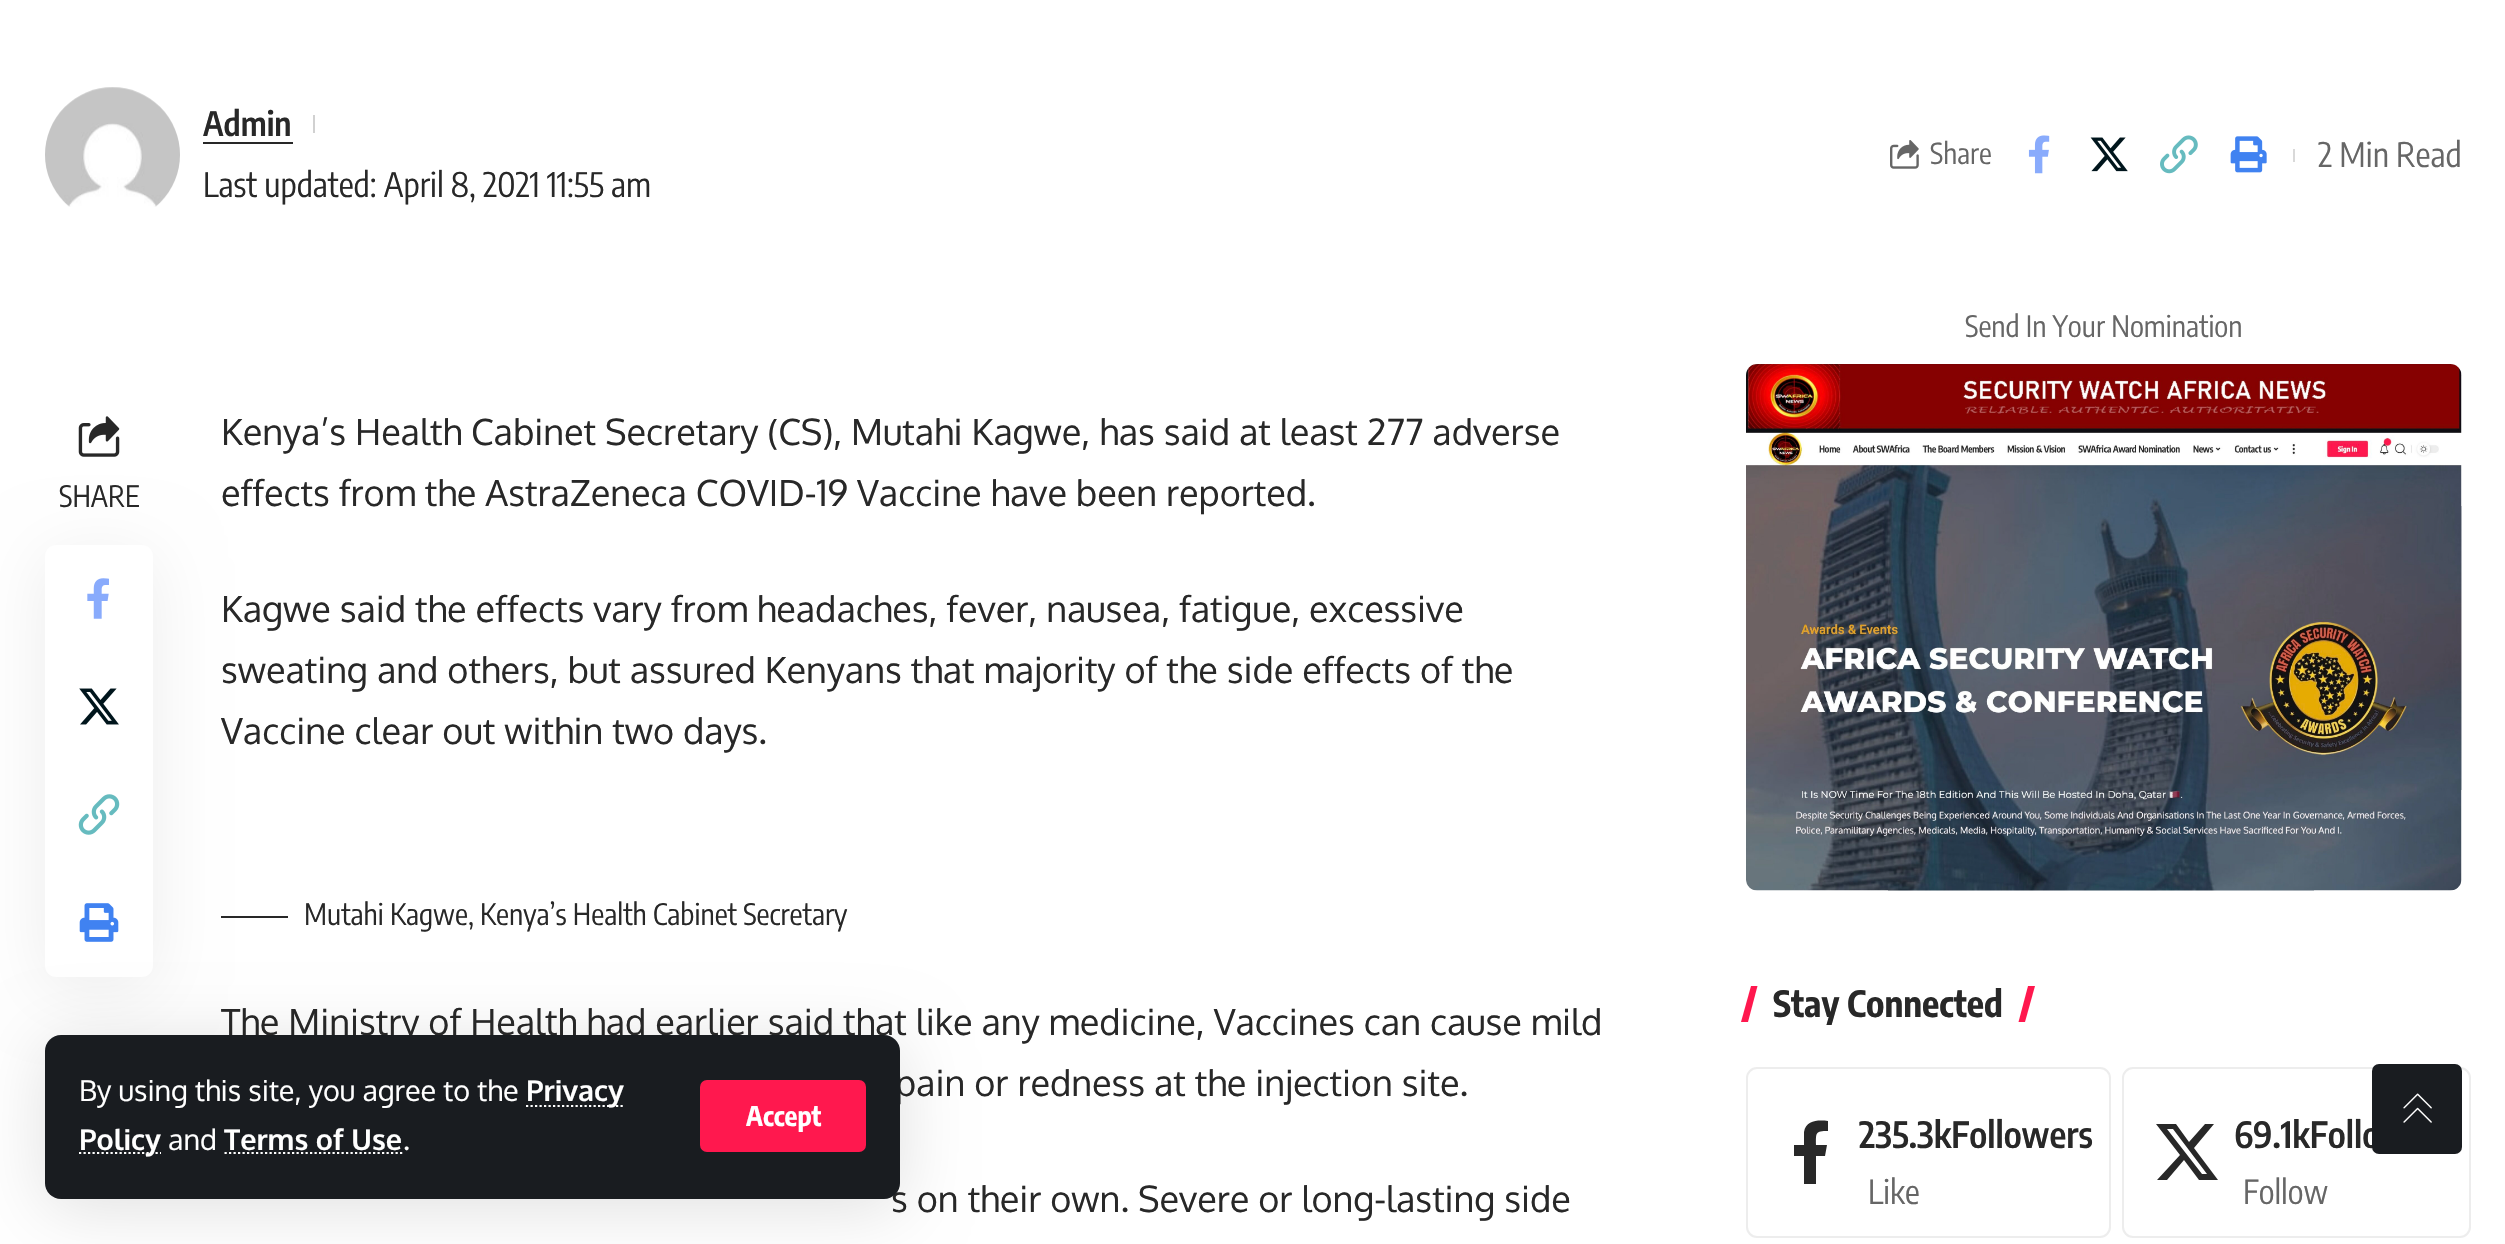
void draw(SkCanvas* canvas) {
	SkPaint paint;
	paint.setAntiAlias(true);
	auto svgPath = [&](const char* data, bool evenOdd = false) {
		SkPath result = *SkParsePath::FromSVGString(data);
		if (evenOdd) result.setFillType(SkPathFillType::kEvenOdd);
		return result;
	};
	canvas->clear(0xffffffff);
	canvas->drawImageRect(SkImages::DeferredFromEncodedData(SkData::MakeFromFileName("img1.png")), SkRect::MakeXYWH(45, 87, 135, 120), SkSamplingOptions());
	SkFont f1(fontMgr->matchFamilyStyle("Encode Sans Condensed", SkFontStyle(600, SkFontStyle::kNormal_Width, SkFontStyle::kUpright_Slant)), 33.6);
	f1.setSubpixel(true);
	paint.setColor(0xff282828);
	canvas->drawString("Admin", 203, 136, f1, paint);
	canvas->drawRect(SkRect::MakeXYWH(203, 142, 90, 2), paint);
	paint.setColor(0xffd1d1d1);
	canvas->drawRect(SkRect::MakeXYWH(313, 115, 2, 18), paint);
	SkFont f2(fontMgr->matchFamilyStyle("Encode Sans Condensed", SkFontStyle::Normal()), 33.6);
	f2.setSubpixel(true);
	paint.setColor(0xff282828);
	canvas->drawString("Last updated: April 8, 2021 11:55 am", 203, 197, f2, paint);
	canvas->drawImageRect(SkImages::DeferredFromEncodedData(SkData::MakeFromFileName("img2.png")), SkRect::MakeXYWH(1890, 140, 29, 29), SkSamplingOptions());
	SkFont f3(fontMgr->matchFamilyStyle("Encode Sans Condensed", SkFontStyle::Normal()), 28.75);
	f3.setSubpixel(true);
	paint.setColor(0xff666666);
	canvas->drawString("Share", 1930, 164, f3, paint);
	canvas->drawImageRect(SkImages::DeferredFromEncodedData(SkData::MakeFromFileName("img3.png")), SkRect::MakeXYWH(2028, 135, 22, 39), SkSamplingOptions());
	canvas->drawImageRect(SkImages::DeferredFromEncodedData(SkData::MakeFromFileName("img4.png")), SkRect::MakeXYWH(2090, 137, 38, 35), SkSamplingOptions());
	canvas->drawImageRect(SkImages::DeferredFromEncodedData(SkData::MakeFromFileName("img5.png")), SkRect::MakeXYWH(2160, 135, 38, 39), SkSamplingOptions());
	canvas->drawImageRect(SkImages::DeferredFromEncodedData(SkData::MakeFromFileName("img6.png")), SkRect::MakeXYWH(2230, 136, 37, 37), SkSamplingOptions());
	paint.setColor(0xffd9d9d9);
	canvas->drawRect(SkRect::MakeXYWH(2293, 149, 2, 13), paint);
	paint.setColor(0xff666666);
	canvas->drawString("2 Min Read", 2318, 167, f2, paint);
	paint.setColor(0x12000000);
	paint.setMaskFilter(SkMaskFilter::MakeBlur(kNormal_SkBlurStyle, 34));
	canvas->drawRoundRect(SkRect::MakeXYWH(45, 556, 108, 432), 11, 11, paint);
	paint.setMaskFilter(nullptr);
	paint.setColor(0xffffffff);
	canvas->drawRoundRect(SkRect::MakeXYWH(45, 545, 108, 432), 11, 11, paint);
	canvas->drawImageRect(SkImages::DeferredFromEncodedData(SkData::MakeFromFileName("img7.png")), SkRect::MakeXYWH(87, 578, 22, 41), SkSamplingOptions());
	canvas->drawImageRect(SkImages::DeferredFromEncodedData(SkData::MakeFromFileName("img8.png")), SkRect::MakeXYWH(79, 688, 40, 37), SkSamplingOptions());
	canvas->drawImageRect(SkImages::DeferredFromEncodedData(SkData::MakeFromFileName("img9.png")), SkRect::MakeXYWH(78, 794, 42, 41), SkSamplingOptions());
	canvas->drawImageRect(SkImages::DeferredFromEncodedData(SkData::MakeFromFileName("img10.png")), SkRect::MakeXYWH(79, 903, 40, 39), SkSamplingOptions());
	canvas->drawImageRect(SkImages::DeferredFromEncodedData(SkData::MakeFromFileName("img11.png")), SkRect::MakeXYWH(78, 416, 42, 41), SkSamplingOptions());
	SkFont f4(fontMgr->matchFamilyStyle("Encode Sans Condensed", SkFontStyle::Normal()), 29.25);
	f4.setSubpixel(true);
	paint.setColor(0xff282828);
	canvas->drawString("SHARE", 59, 507, f4, paint);
	SkFont f5(fontMgr->matchFamilyStyle("Oxygen", SkFontStyle::Normal()), 36);
	f5.setSubpixel(true);
	canvas->drawString("Kenya’s Health Cabinet Secretary (CS), Mutahi Kagwe, has said at least 277 adverse", 221, 445, f5, paint);
	canvas->drawString("effects from the AstraZeneca COVID-19 Vaccine have been reported.", 221, 506, f5, paint);
	canvas->drawString("Kagwe said the effects vary from headaches, fever, nausea, fatigue, excessive", 221, 622, f5, paint);
	canvas->drawString("sweating and others, but assured Kenyans that majority of the side effects of the", 221, 683, f5, paint);
	canvas->drawString("Vaccine clear out within two days.", 221, 744, f5, paint);
	canvas->drawRect(SkRect::MakeXYWH(221, 916, 67, 2), paint);
	canvas->drawString("Mutahi Kagwe, Kenya’s Health Cabinet Secretary", 304, 925, f4, paint);
	canvas->drawString("The Ministry of Health had earlier said that like any medicine, Vaccines can cause mild", 221, 1035, f5, paint);
	canvas->drawString("pain or redness at the injection site.", 895, 1096, f5, paint);
	canvas->drawString("s on their own. Severe or long-lasting side", 891, 1212, f5, paint);
	paint.setColor(0xff666666);
	canvas->drawString("Send In Your Nomination", 1965, 337, f4, paint);
	canvas->drawImageRect(SkImages::DeferredFromEncodedData(SkData::MakeFromFileName("img12.png")), SkRect::MakeXYWH(1746, 364, 716, 527), SkSamplingOptions());
	paint.setColor(0xffff184e);
	canvas->drawPath(svgPath("M2028 986H2035L2025 1022H2018.5Z"), paint);
	canvas->drawPath(svgPath("M1751 986H1757.5L1748 1022H1741Z"), paint);
	SkFont f6(fontMgr->matchFamilyStyle("Encode Sans Condensed", SkFontStyle::Bold()), 36);
	f6.setSubpixel(true);
	paint.setColor(0xff282828);
	canvas->drawString("Stay Connected", 1773, 1017, f6, paint);
	paint.setStroke(true);
	paint.setStrokeWidth(2);
	paint.setColor(0xffededed);
	canvas->drawRoundRect(SkRect::MakeXYWH(1747, 1068, 363, 169), 10, 10, paint);
	paint.setStroke(false);
	paint.setColor(0xff282828);
	canvas->drawPath(svgPath("M1825 1156L1827 1145H1816C1816 1133 1815 1131 1828 1131V1121C1818 1120 1806 1120 1804 1132V1145H1794V1156H1804V1184H1816V1156Z"), paint);
	SkFont f7(fontMgr->matchFamilyStyle("Encode Sans Condensed", SkFontStyle(600, SkFontStyle::kNormal_Width, SkFontStyle::kUpright_Slant)), 36);
	f7.setSubpixel(true);
	canvas->drawString("235.3kFollowers", 1859, 1148, f7, paint);
	SkFont f8(fontMgr->matchFamilyStyle("Encode Sans Condensed", SkFontStyle::Normal()), 33);
	f8.setSubpixel(true);
	paint.setColor(0xff666666);
	canvas->drawString("Like", 1868, 1204, f8, paint);
	paint.setStroke(true);
	paint.setColor(0xffededed);
	canvas->drawRoundRect(SkRect::MakeXYWH(2123, 1068, 347, 169), 10, 10, paint);
	paint.setStroke(false);
	paint.setColor(0xff282828);
	canvas->drawPath(svgPath("M2205 1124H2214L2194 1148L2218 1180H2199L2184 1160L2167 1180H2157L2180 1155L2156 1124H2176L2189 1142ZM2202 1174H2207L2173 1129H2167Z"), paint);
	canvas->drawString("69.1kFollo", 2234, 1148, f7, paint);
	paint.setColor(0xff666666);
	canvas->drawString("Follow", 2243, 1204, f8, paint);
	paint.setColor(0x1f000000);
	paint.setMaskFilter(SkMaskFilter::MakeBlur(kNormal_SkBlurStyle, 34));
	canvas->drawRoundRect(SkRect::MakeXYWH(45, 1044, 855, 164), 16, 16, paint);
	paint.setMaskFilter(nullptr);
	paint.setColor(0xff191c20);
	canvas->drawRoundRect(SkRect::MakeXYWH(45, 1035, 855, 164), 16, 16, paint);
	SkFont f9(fontMgr->matchFamilyStyle("Oxygen", SkFontStyle::Normal()), 28.75);
	f9.setSubpixel(true);
	paint.setColor(0xffffffff);
	canvas->drawString("By using this site, you agree to the", 79, 1101, f9, paint);
	paint.setStroke(true);
	paint.setStrokeWidth(2.2);
	paint.setPathEffect(SkDashPathEffect::Make({{2.25f, 2.25f}}, 0));
	canvas->drawPath(svgPath("M526 1106H624"), paint);
	paint.setPathEffect(nullptr);
	SkFont f10(fontMgr->matchFamilyStyle("Oxygen", SkFontStyle::Bold()), 28.75);
	f10.setSubpixel(true);
	paint.setStroke(false);
	canvas->drawString("Privacy", 526, 1101, f10, paint);
	paint.setStroke(true);
	paint.setPathEffect(SkDashPathEffect::Make({{2.25f, 2.25f}}, 0));
	canvas->drawPath(svgPath("M79 1153H161"), paint);
	paint.setPathEffect(nullptr);
	paint.setStroke(false);
	canvas->drawString("Policy", 79, 1150, f10, paint);
	canvas->drawString("and", 168, 1150, f9, paint);
	canvas->drawString("Terms of Use", 224, 1150, f10, paint);
	paint.setStroke(true);
	paint.setPathEffect(SkDashPathEffect::Make({{2.25f, 2.25f}}, 0));
	canvas->drawPath(svgPath("M224.5 1153H402.5"), paint);
	paint.setPathEffect(nullptr);
	paint.setStroke(false);
	canvas->drawString(".", 403, 1150, f9, paint);
	paint.setColor(0xffff184e);
	canvas->drawRoundRect(SkRect::MakeXYWH(700, 1080, 166, 72), 7, 7, paint);
	SkFont f11(fontMgr->matchFamilyStyle("Encode Sans Condensed", SkFontStyle::Bold()), 27);
	f11.setSubpixel(true);
	paint.setColor(0xffffffff);
	canvas->drawString("Accept", 746, 1126, f11, paint);
	paint.setColor(0xff191c20);
	canvas->drawRoundRect(SkRect::MakeXYWH(2372, 1064, 90, 90), 7, 7, paint);
	canvas->drawImageRect(SkImages::DeferredFromEncodedData(SkData::MakeFromFileName("img13.png")), SkRect::MakeXYWH(2403, 1093, 29, 30), SkSamplingOptions());
}
